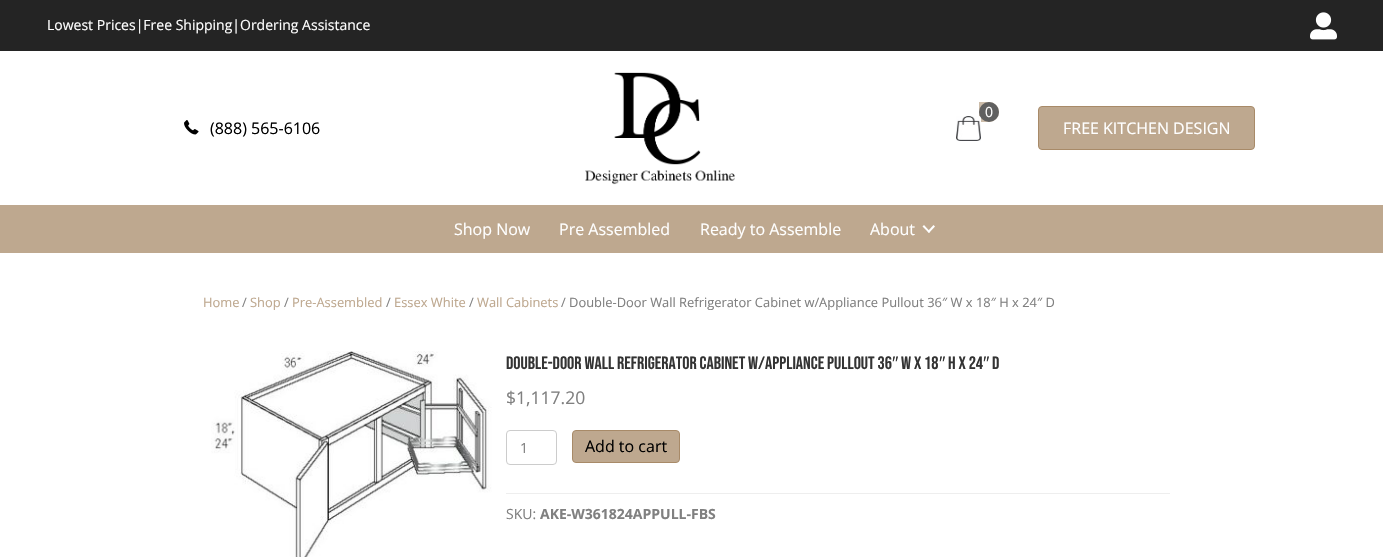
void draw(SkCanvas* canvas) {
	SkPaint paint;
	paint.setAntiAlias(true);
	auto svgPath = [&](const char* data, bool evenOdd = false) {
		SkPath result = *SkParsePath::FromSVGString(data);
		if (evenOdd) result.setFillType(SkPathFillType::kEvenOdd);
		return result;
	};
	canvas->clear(0xffffffff);
	paint.setColor(0xff242424);
	canvas->drawRect(SkRect::MakeXYWH(0, 0, 1383, 51), paint);
	SkFont f1(fontMgr->matchFamilyStyle("Open Sans", SkFontStyle::Normal()), 14);
	f1.setSubpixel(true);
	paint.setColor(0xffffffff);
	canvas->drawString("Lowest Prices|Free Shipping|Ordering Assistance", 47, 30, f1, paint);
	canvas->drawImageRect(SkImages::DeferredFromEncodedData(SkData::MakeFromFileName("img1.png")), SkRect::MakeXYWH(1310, 12, 27, 28), SkSamplingOptions());
	canvas->drawImageRect(SkImages::DeferredFromEncodedData(SkData::MakeFromFileName("img2.png")), SkRect::MakeXYWH(585, 72, 150, 113), SkSamplingOptions());
	paint.setColor(0xffccbca9);
	canvas->drawPath(svgPath("M979 102H989C994.5 102 999 106.5 999 112C999 117.5 994.5 122 989 122H979Z"), paint);
	canvas->drawImageRect(SkImages::DeferredFromEncodedData(SkData::MakeFromFileName("img3.png")), SkRect::MakeXYWH(956, 116, 25, 25), SkSamplingOptions());
	paint.setColor(0xff606060);
	canvas->drawCircle(989, 112, 10, paint);
	paint.setColor(0xffffffff);
	canvas->drawString("0", 985, 117, f1, paint);
	canvas->drawImageRect(SkImages::DeferredFromEncodedData(SkData::MakeFromFileName("img4.png")), SkRect::MakeXYWH(184, 120, 15, 15), SkSamplingOptions());
	SkFont f2(fontMgr->matchFamilyStyle("Open Sans", SkFontStyle::Normal()), 16);
	f2.setSubpixel(true);
	paint.setColor(0xff000000);
	canvas->drawString("(888) 565-6106", 210, 134, f2, paint);
	paint.setColor(0xffbea88f);
	canvas->drawRoundRect(SkRect::MakeXYWH(1038.5, 106.5, 216, 43), 3.5, 3.5, paint);
	paint.setStroke(true);
	paint.setStrokeWidth(1);
	paint.setColor(0xffa88a68);
	canvas->drawRoundRect(SkRect::MakeXYWH(1038.5, 106.5, 216, 43), 3.5, 3.5, paint);
	paint.setStroke(false);
	paint.setColor(0xffffffff);
	canvas->drawString("FREE KITCHEN DESIGN", 1063, 134, f2, paint);
	paint.setColor(0xffbea88f);
	canvas->drawRect(SkRect::MakeXYWH(0, 205, 1383, 48), paint);
	paint.setColor(0xffffffff);
	canvas->drawString("Shop Now", 454, 235, f2, paint);
	canvas->drawString("Pre Assembled", 559, 235, f2, paint);
	canvas->drawString("Ready to Assemble", 700, 235, f2, paint);
	canvas->drawString("About", 870, 235, f2, paint);
	canvas->drawPath(svgPath("M933.5 225L935 226.5L929 233L927.5 231.5Z"), paint);
	canvas->drawPath(svgPath("M924 225L930 231.5L929 233L922.5 226.5Z"), paint);
	SkFont f3(fontMgr->matchFamilyStyle("Open Sans", SkFontStyle::Normal()), 12.9);
	f3.setSubpixel(true);
	paint.setColor(0xffbea88f);
	canvas->drawString("Home", 203, 307, f3, paint);
	paint.setColor(0xff808080);
	canvas->drawString("/", 242, 307, f3, paint);
	paint.setColor(0xffbea88f);
	canvas->drawString("Shop", 250, 307, f3, paint);
	paint.setColor(0xff808080);
	canvas->drawString("/", 284, 307, f3, paint);
	paint.setColor(0xffbea88f);
	canvas->drawString("Pre-Assembled", 292, 307, f3, paint);
	paint.setColor(0xff808080);
	canvas->drawString("/", 386, 307, f3, paint);
	paint.setColor(0xffbea88f);
	canvas->drawString("Essex White", 394, 307, f3, paint);
	paint.setColor(0xff808080);
	canvas->drawString("/", 469, 307, f3, paint);
	paint.setColor(0xffbea88f);
	canvas->drawString("Wall Cabinets", 477, 307, f3, paint);
	paint.setColor(0xff808080);
	canvas->drawString("/ Double-Door Wall Refrigerator Cabinet w/Appliance Pullout 36″ W x 18″ H x 24″ D", 561, 307, f3, paint);
	canvas->drawImageRect(SkImages::DeferredFromEncodedData(SkData::MakeFromFileName("img5.png")), SkRect::MakeXYWH(211, 351, 281, 206), SkSamplingOptions());
	SkFont f4(fontMgr->matchFamilyStyle("Bebas Neue", SkFontStyle::Normal()), 18);
	f4.setSubpixel(true);
	paint.setColor(0xff333333);
	canvas->drawString("Double-Door Wall Refrigerator Cabinet w/Appliance Pullout 36", 506, 369, f4, paint);
	SkFont f5(fontMgr->matchFamilyStyle("Liberation Sans", SkFontStyle::Normal()), 18);
	f5.setSubpixel(true);
	canvas->drawString("″", 892, 369, f5, paint);
	canvas->drawString("W x 18", 901, 369, f4, paint);
	canvas->drawString("″", 939, 369, f5, paint);
	canvas->drawString("H x 24", 948, 369, f4, paint);
	canvas->drawString("″", 983, 369, f5, paint);
	canvas->drawString("D", 992, 369, f4, paint);
	SkFont f6(fontMgr->matchFamilyStyle("Open Sans", SkFontStyle::Normal()), 17.5);
	f6.setSubpixel(true);
	paint.setColor(0xff808080);
	canvas->drawString("$1,117.20", 506, 404, f6, paint);
	paint.setStroke(true);
	paint.setColor(0xffcccccc);
	canvas->drawRoundRect(SkRect::MakeXYWH(506.5, 430.5, 50, 34), 3.5, 3.5, paint);
	paint.setStroke(false);
	paint.setColor(0xff808080);
	canvas->drawString("1", 520, 453, f1, paint);
	paint.setColor(0xffbea88f);
	canvas->drawRoundRect(SkRect::MakeXYWH(572.5, 430.5, 107, 32), 3.5, 3.5, paint);
	paint.setStroke(true);
	paint.setColor(0xffa88a68);
	canvas->drawRoundRect(SkRect::MakeXYWH(572.5, 430.5, 107, 32), 3.5, 3.5, paint);
	paint.setStroke(false);
	paint.setColor(0xff000000);
	canvas->drawString("Add to cart", 585, 452, f2, paint);
	paint.setColor(0xffeeeeee);
	canvas->drawRect(SkRect::MakeXYWH(506, 493, 664, 1), paint);
	paint.setColor(0xff808080);
	canvas->drawString("SKU:", 506, 519, f1, paint);
	SkFont f7(fontMgr->matchFamilyStyle("Open Sans", SkFontStyle::Bold()), 14);
	f7.setSubpixel(true);
	canvas->drawString("AKE-W361824APPULL-FBS", 540, 519, f7, paint);
}
